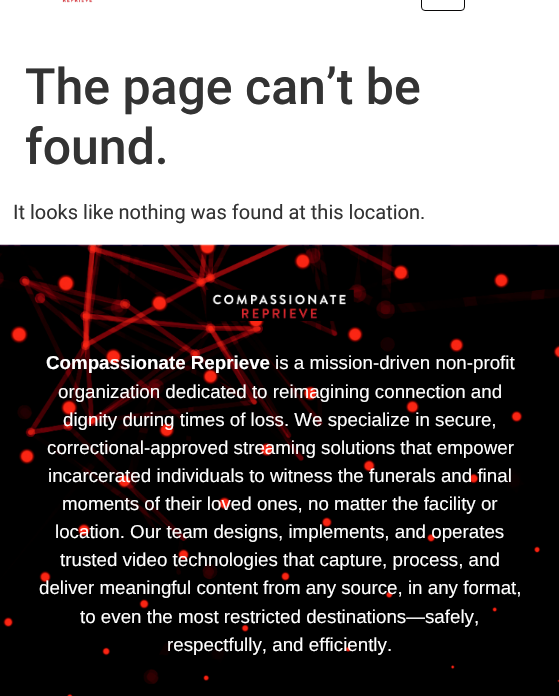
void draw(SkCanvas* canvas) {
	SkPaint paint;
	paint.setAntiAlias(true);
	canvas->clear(0xffffffff);
	canvas->drawImageRect(SkImages::DeferredFromEncodedData(SkData::MakeFromFileName("img1.png")), SkRect::MakeXYWH(62, 0, 31, 3), SkSamplingOptions());
	paint.setStroke(true);
	paint.setStrokeWidth(1);
	paint.setColor(0xff090808);
	canvas->drawRoundRect(SkRect::MakeXYWH(421.5, -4.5, 43, 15), 3.5, 3.5, paint);
	SkFont f1(fontMgr->matchFamilyStyle("Roboto", SkFontStyle(500, SkFontStyle::kNormal_Width, SkFontStyle::kUpright_Slant)), 50);
	f1.setSubpixel(true);
	paint.setStroke(false);
	paint.setColor(0xff333333);
	canvas->drawString("The page can’t be", 25, 104, f1, paint);
	canvas->drawString("found.", 25, 164, f1, paint);
	SkFont f2(fontMgr->matchFamilyStyle("Roboto", SkFontStyle::Normal()), 20);
	f2.setSubpixel(true);
	canvas->drawString("It looks like nothing was found at this location.", 13, 219, f2, paint);
	canvas->drawImageRect(SkImages::DeferredFromEncodedData(SkData::MakeFromFileName("img2.png")), SkRect::MakeXYWH(0, 244, 559, 452), SkSamplingOptions());
	canvas->drawImageRect(SkImages::DeferredFromEncodedData(SkData::MakeFromFileName("img3.png")), SkRect::MakeXYWH(206, 289, 148, 32), SkSamplingOptions());
	SkFont f3(fontMgr->matchFamilyStyle("Liberation Sans", SkFontStyle::Bold()), 18.75);
	f3.setSubpixel(true);
	paint.setColor(0xffffffff);
	canvas->drawString("Compassionate Reprieve", 46, 369, f3, paint);
	SkFont f4(fontMgr->matchFamilyStyle("Liberation Sans", SkFontStyle::Normal()), 18.75);
	f4.setSubpixel(true);
	canvas->drawString("is a mission-driven non-profit", 275, 369, f4, paint);
	canvas->drawString("organization dedicated to reimagining connection and", 58, 398, f4, paint);
	canvas->drawString("dignity during times of loss. We specialize in secure,", 63, 426, f4, paint);
	canvas->drawString("correctional-approved streaming solutions that empower", 47, 454, f4, paint);
	canvas->drawString("incarcerated individuals to witness the funerals and final", 48, 482, f4, paint);
	canvas->drawString("moments of their loved ones, no matter the facility or", 62, 510, f4, paint);
	canvas->drawString("location. Our team designs, implements, and operates", 55, 538, f4, paint);
	canvas->drawString("trusted video technologies that capture, process, and", 60, 566, f4, paint);
	canvas->drawString("deliver meaningful content from any source, in any format,", 39, 594, f4, paint);
	canvas->drawString("to even the most restricted destinations—safely,", 80, 623, f4, paint);
	canvas->drawString("respectfully, and efficiently.", 167, 651, f4, paint);
}
